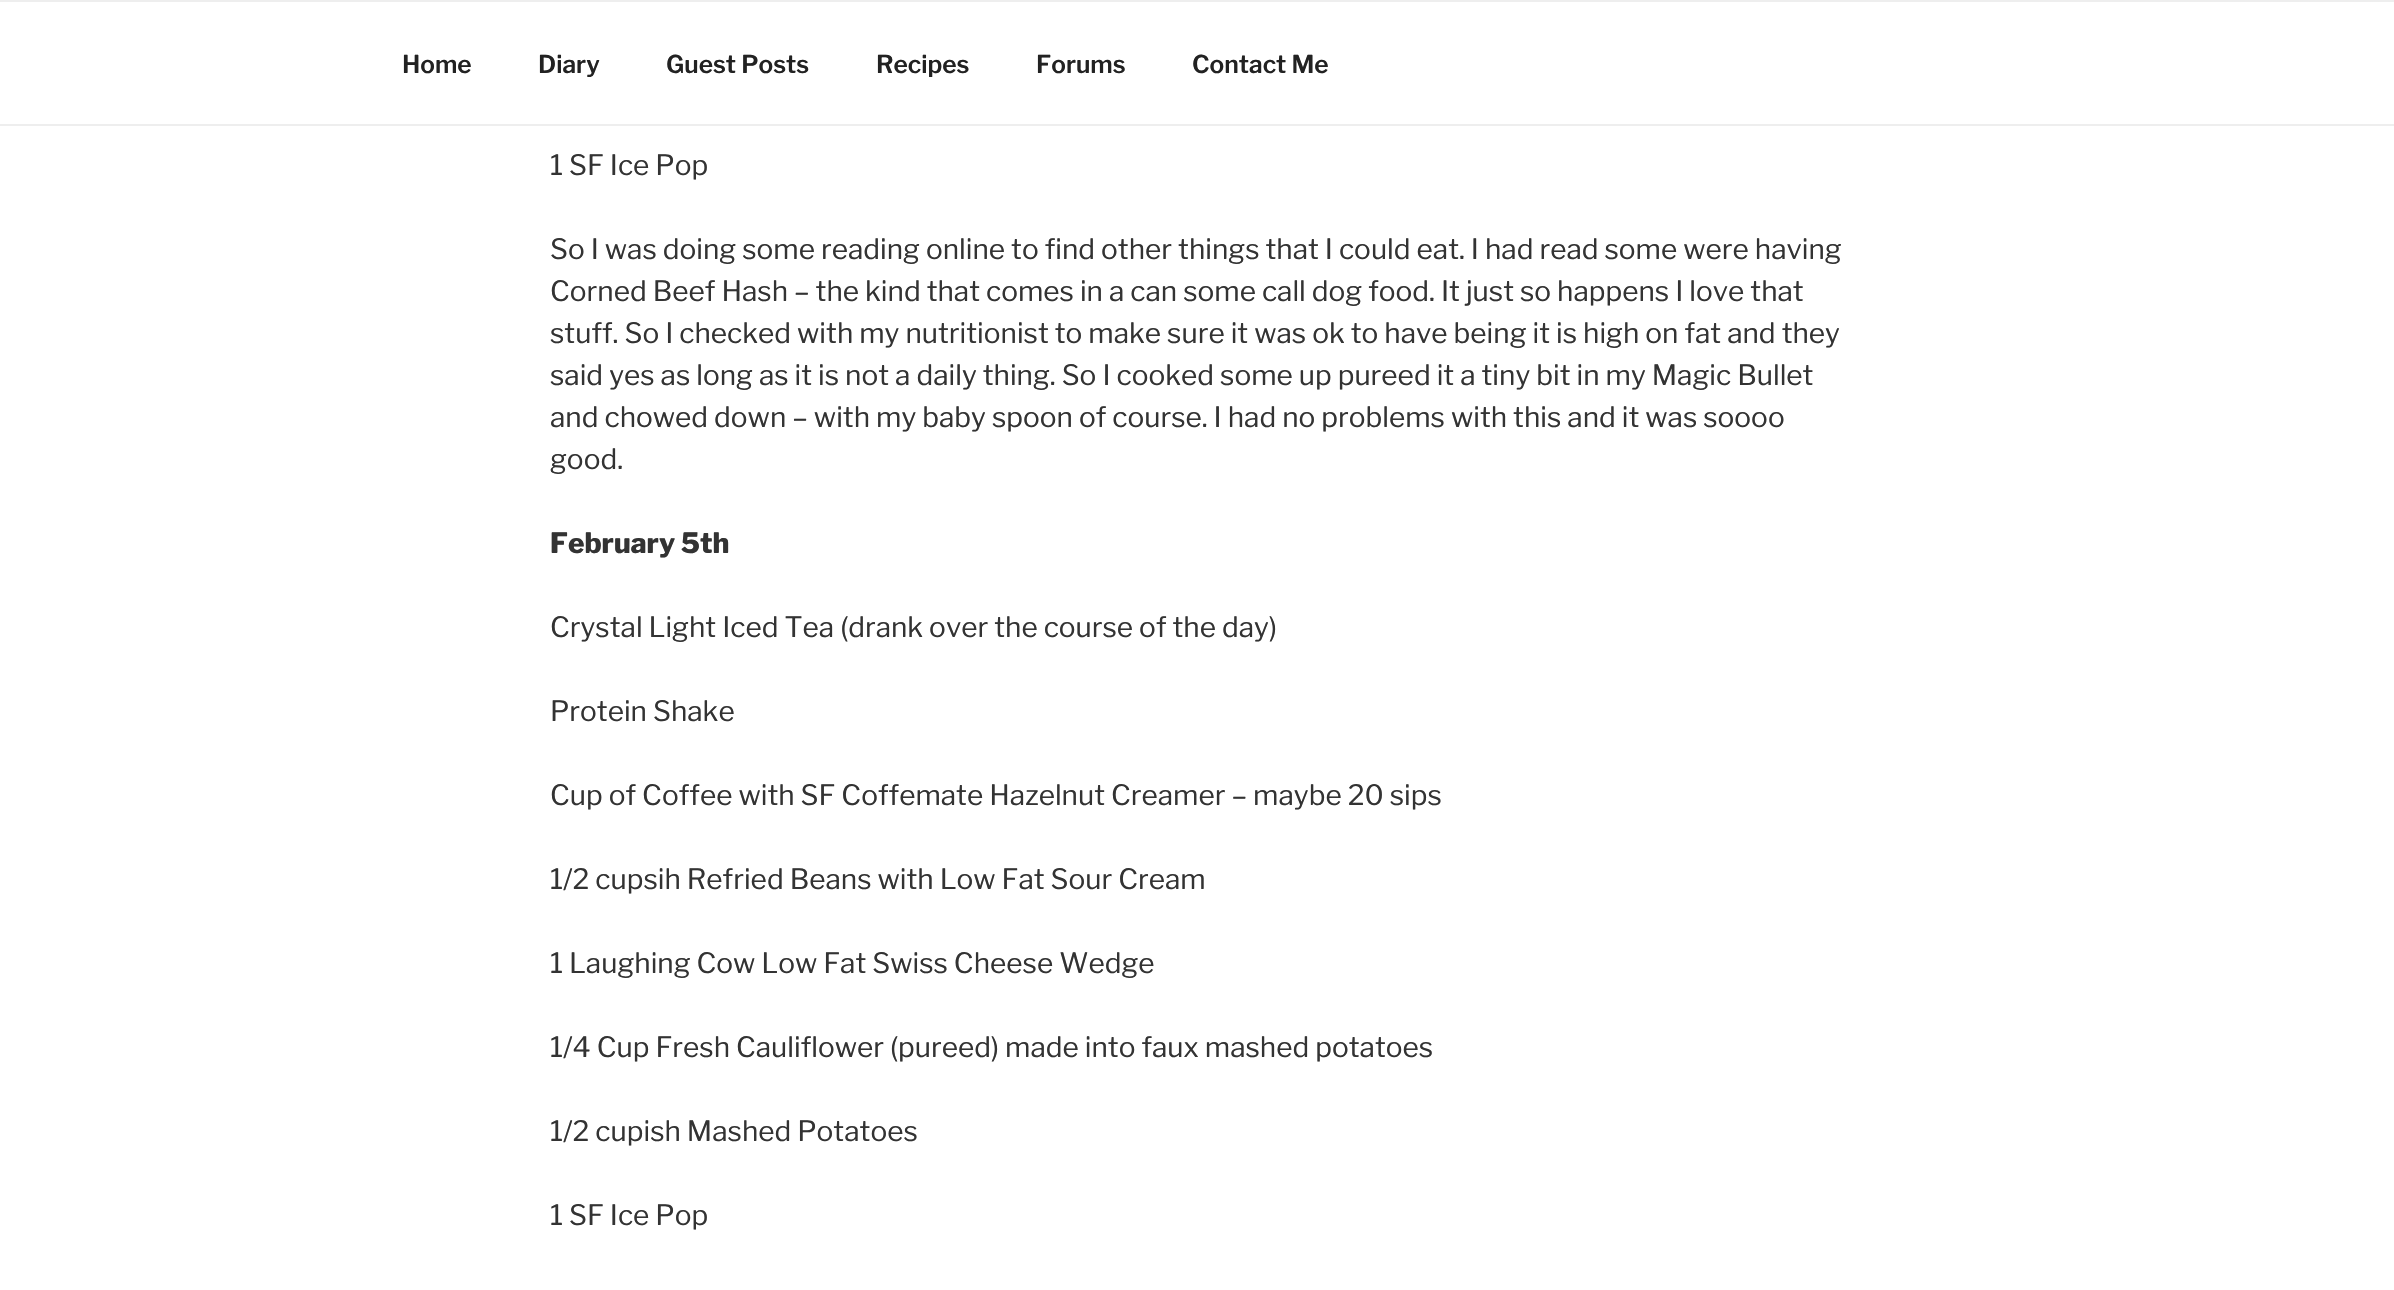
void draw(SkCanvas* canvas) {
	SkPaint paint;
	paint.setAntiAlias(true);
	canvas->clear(0xffffffff);
	paint.setColor(0xffeeeeee);
	canvas->drawRect(SkRect::MakeXYWH(0, 0, 2394, 2), paint);
	canvas->drawRect(SkRect::MakeXYWH(0, 124, 2394, 2), paint);
	SkFont f1(fontMgr->matchFamilyStyle("Libre Franklin", SkFontStyle(600, SkFontStyle::kNormal_Width, SkFontStyle::kUpright_Slant)), 24.5);
	f1.setSubpixel(true);
	paint.setColor(0xff222222);
	canvas->drawString("Home", 402, 73, f1, paint);
	canvas->drawString("Diary", 538, 73, f1, paint);
	canvas->drawString("Guest Posts", 666, 73, f1, paint);
	canvas->drawString("Recipes", 876, 73, f1, paint);
	canvas->drawString("Forums", 1036, 73, f1, paint);
	canvas->drawString("Contact Me", 1192, 73, f1, paint);
	SkFont f2(fontMgr->matchFamilyStyle("Libre Franklin", SkFontStyle::Normal()), 28);
	f2.setSubpixel(true);
	paint.setColor(0xff333333);
	canvas->drawString("1 SF Ice Pop", 550, 175, f2, paint);
	canvas->drawString("So I was doing some reading online to find other things that I could eat. I had read some were having", 550, 259, f2, paint);
	canvas->drawString("Corned Beef Hash – the kind that comes in a can some call dog food. It just so happens I love that", 550, 301, f2, paint);
	canvas->drawString("stuff. So I checked with my nutritionist to make sure it was ok to have being it is high on fat and they", 550, 343, f2, paint);
	canvas->drawString("said yes as long as it is not a daily thing. So I cooked some up pureed it a tiny bit in my Magic Bullet", 550, 385, f2, paint);
	canvas->drawString("and chowed down – with my baby spoon of course. I had no problems with this and it was soooo", 550, 427, f2, paint);
	canvas->drawString("good.", 550, 469, f2, paint);
	SkFont f3(fontMgr->matchFamilyStyle("Libre Franklin", SkFontStyle(800, SkFontStyle::kNormal_Width, SkFontStyle::kUpright_Slant)), 28);
	f3.setSubpixel(true);
	canvas->drawString("February 5th", 550, 553, f3, paint);
	canvas->drawString("Crystal Light Iced Tea (drank over the course of the day)", 550, 637, f2, paint);
	canvas->drawString("Protein Shake", 550, 721, f2, paint);
	canvas->drawString("Cup of Coffee with SF Coffemate Hazelnut Creamer – maybe 20 sips", 550, 805, f2, paint);
	canvas->drawString("1/2 cupsih Refried Beans with Low Fat Sour Cream", 550, 889, f2, paint);
	canvas->drawString("1 Laughing Cow Low Fat Swiss Cheese Wedge", 550, 973, f2, paint);
	canvas->drawString("1/4 Cup Fresh Cauliflower (pureed) made into faux mashed potatoes", 550, 1057, f2, paint);
	canvas->drawString("1/2 cupish Mashed Potatoes", 550, 1141, f2, paint);
	canvas->drawString("1 SF Ice Pop", 550, 1225, f2, paint);
}
